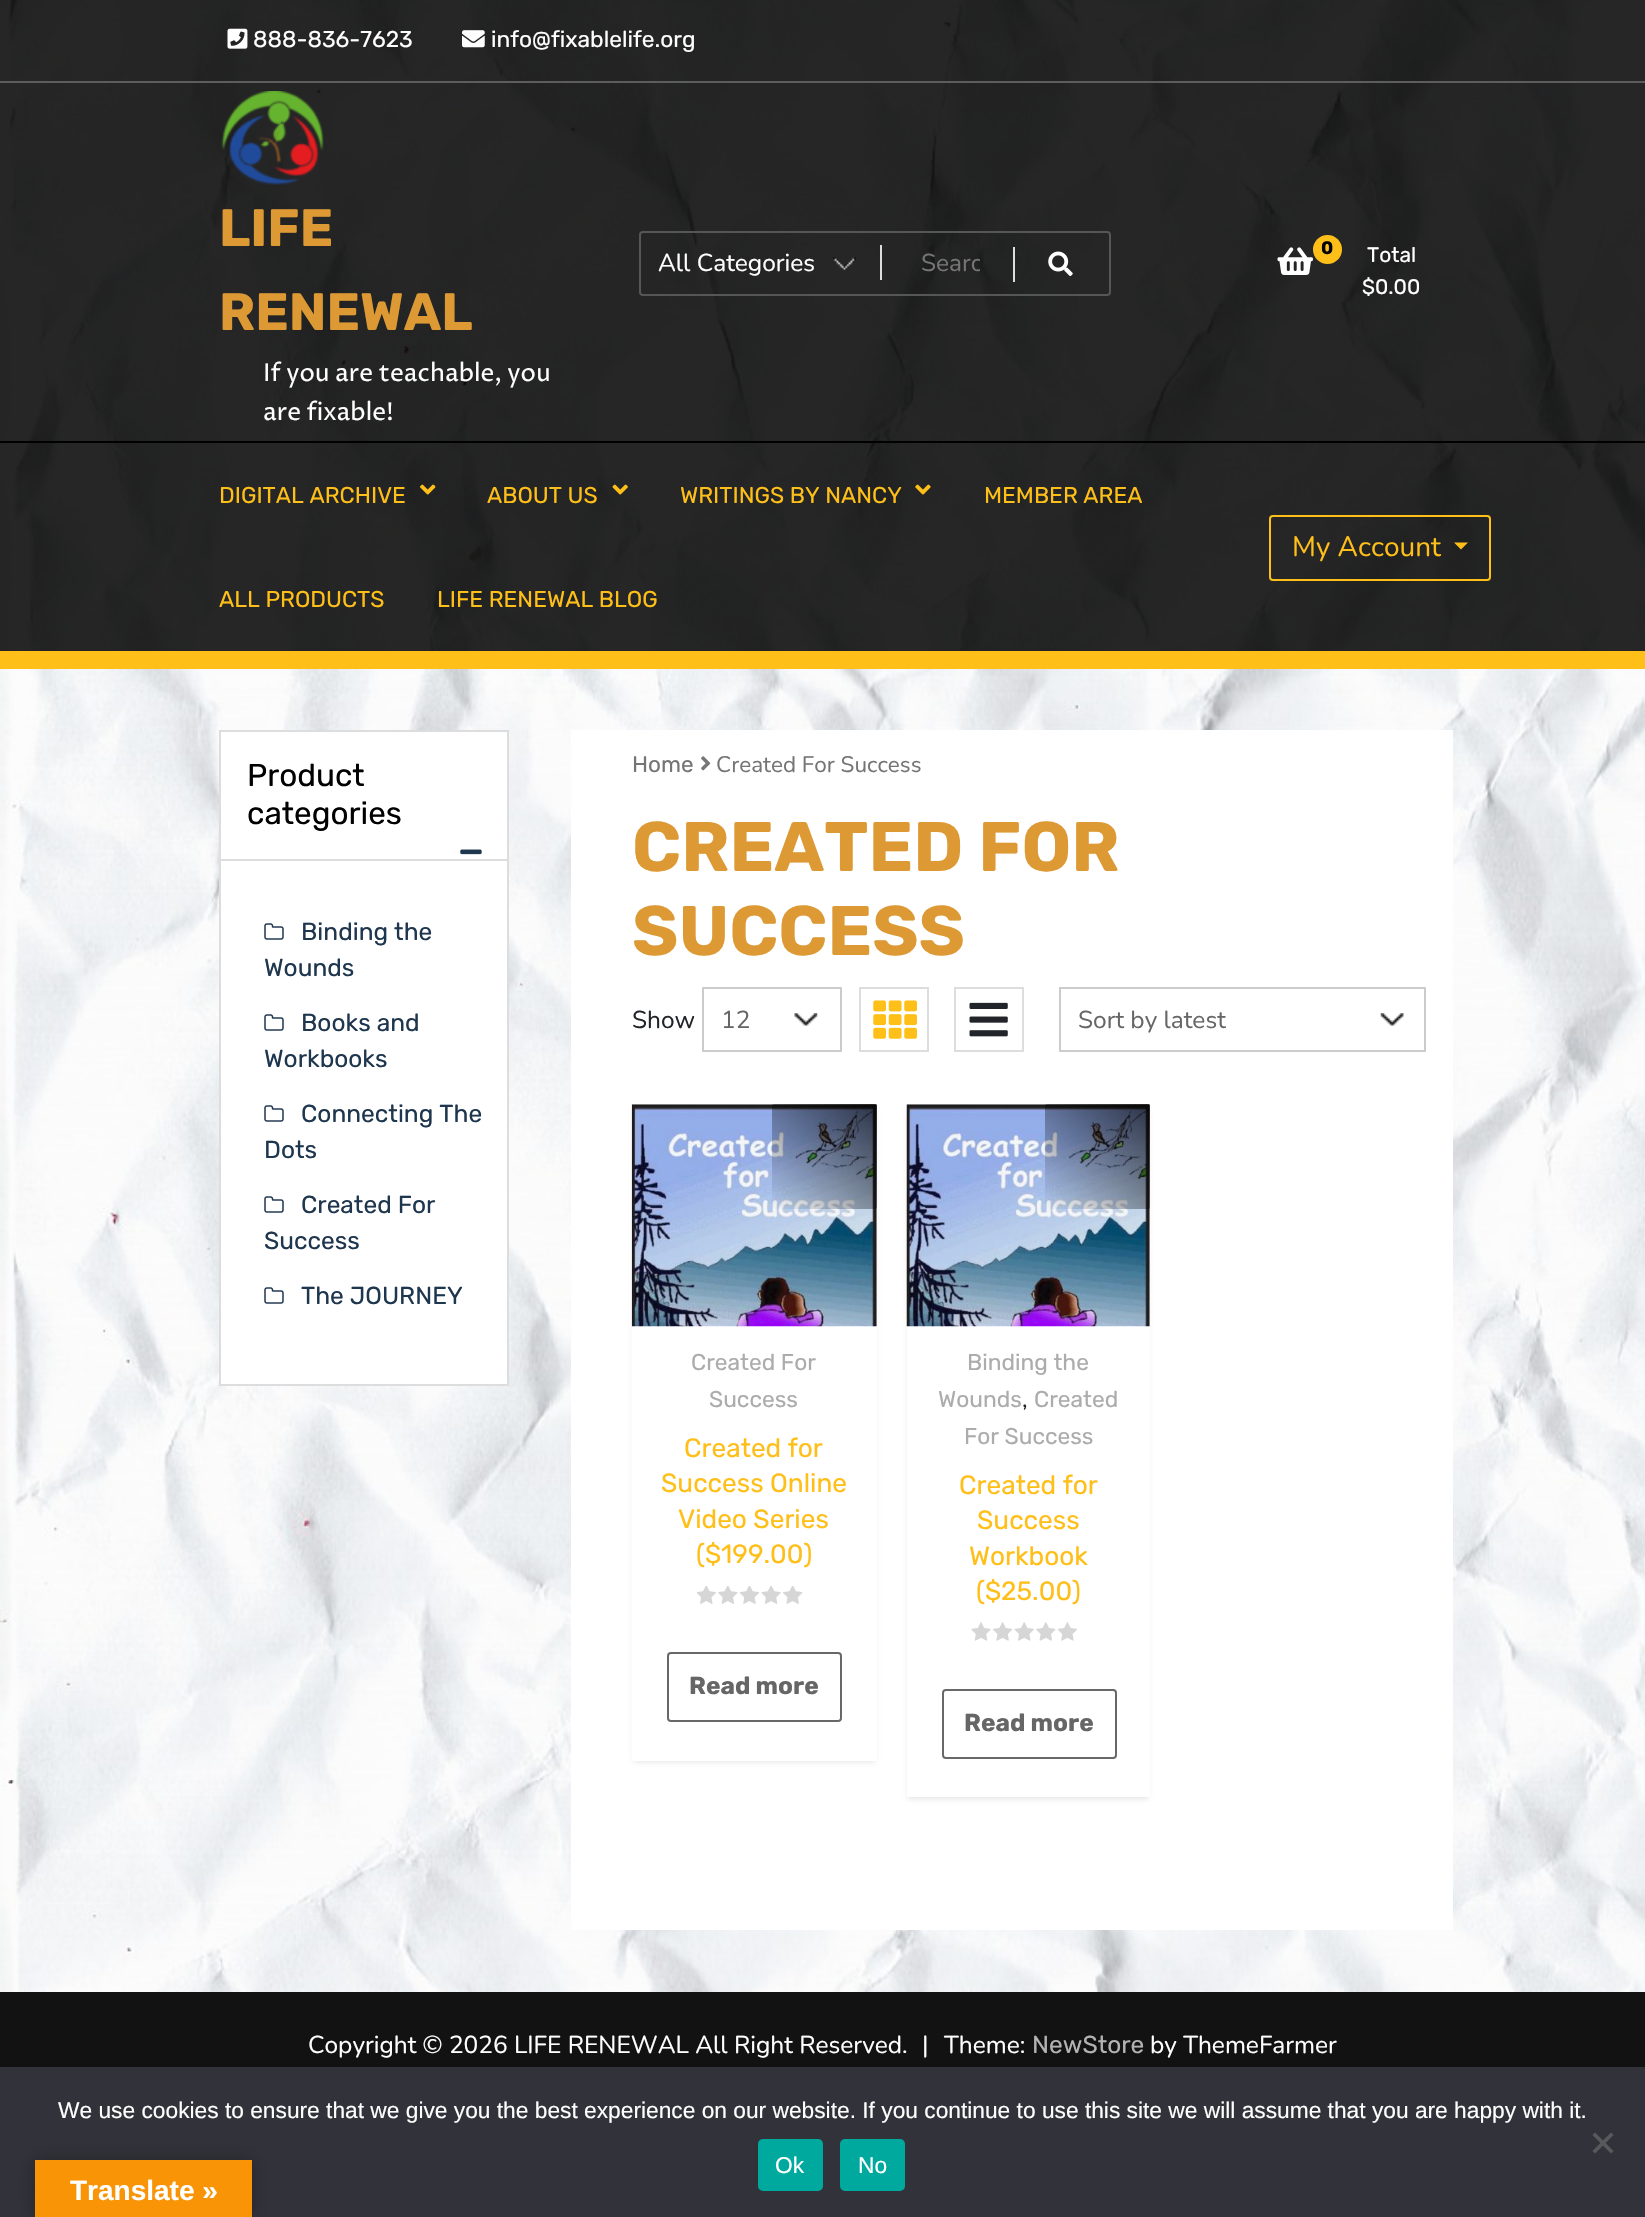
void draw(SkCanvas* canvas) {
	SkPaint paint;
	paint.setAntiAlias(true);
	auto svgPath = [&](const char* data, bool evenOdd = false) {
		SkPath result = *SkParsePath::FromSVGString(data);
		if (evenOdd) result.setFillType(SkPathFillType::kEvenOdd);
		return result;
	};
	canvas->clear(0xffffffff);
	canvas->drawImageRect(SkImages::DeferredFromEncodedData(SkData::MakeFromFileName("img1.png")), SkRect::MakeXYWH(0, 0, 1645, 1992), SkSamplingOptions());
	paint.setColor(0xd9000000);
	canvas->drawRect(SkRect::MakeXYWH(0, 0, 1645, 651), paint);
	paint.setColor(0xff5d5d5d);
	canvas->drawRect(SkRect::MakeXYWH(0, 81, 1645, 2), paint);
	canvas->drawImageRect(SkImages::DeferredFromEncodedData(SkData::MakeFromFileName("img2.png")), SkRect::MakeXYWH(227, 28, 21, 21), SkSamplingOptions());
	SkFont f1(fontMgr->matchFamilyStyle("Rubik", SkFontStyle::Normal()), 22.75);
	f1.setSubpixel(true);
	paint.setColor(0xffffffff);
	canvas->drawString("888-836-7623", 253, 47, f1, paint);
	canvas->drawImageRect(SkImages::DeferredFromEncodedData(SkData::MakeFromFileName("img3.png")), SkRect::MakeXYWH(462, 30, 23, 18), SkSamplingOptions());
	canvas->drawString("info@fixablelife.org", 491, 47, f1, paint);
	canvas->drawImageRect(SkImages::DeferredFromEncodedData(SkData::MakeFromFileName("img4.png")), SkRect::MakeXYWH(221, 91, 103, 94), SkSamplingOptions());
	SkFont f2(fontMgr->matchFamilyStyle("Rubik", SkFontStyle::Bold()), 52.5);
	f2.setSubpixel(true);
	paint.setColor(0xffdd9933);
	canvas->drawString("LIFE", 219, 246, f2, paint);
	canvas->drawString("RENEWAL", 219, 330, f2, paint);
	SkFont f3(fontMgr->matchFamilyStyle("Proza Libre", SkFontStyle::Normal()), 24.5);
	f3.setSubpixel(true);
	paint.setColor(0xffffffff);
	canvas->drawString("If you are teachable, you", 263, 381, f3, paint);
	canvas->drawString("are fixable!", 263, 420, f3, paint);
	paint.setStroke(true);
	paint.setStrokeWidth(2);
	paint.setColor(0xff565656);
	canvas->drawRoundRect(SkRect::MakeXYWH(640, 232, 470, 63), 3, 3, paint);
	canvas->drawImageRect(SkImages::DeferredFromEncodedData(SkData::MakeFromFileName("img5.png")), SkRect::MakeXYWH(833, 257, 23, 13), SkSamplingOptions());
	SkFont f4(fontMgr->matchFamilyStyle("Nunito", SkFontStyle::Normal()), 24.5);
	f4.setSubpixel(true);
	paint.setStroke(false);
	paint.setColor(0xffffffff);
	canvas->drawString("All Categories", 658, 271, f4, paint);
	paint.setColor(0xffdddddd);
	canvas->drawRect(SkRect::MakeXYWH(880, 245, 2, 35), paint);
	canvas->save();
	canvas->clipRect(SkRect::MakeXYWH(921, 247, 59, 33));
	paint.setColor(0xff757575);
	canvas->drawString("Searc", 921, 271, f4, paint);
	canvas->restore();
	paint.setColor(0xffdddddd);
	canvas->drawRect(SkRect::MakeXYWH(1013, 247, 2, 35), paint);
	canvas->drawImageRect(SkImages::DeferredFromEncodedData(SkData::MakeFromFileName("img6.png")), SkRect::MakeXYWH(1048, 251, 25, 25), SkSamplingOptions());
	canvas->drawImageRect(SkImages::DeferredFromEncodedData(SkData::MakeFromFileName("img7.png")), SkRect::MakeXYWH(1277, 247, 36, 28), SkSamplingOptions());
	paint.setColor(0xffffbf19);
	canvas->drawCircle(1327.5, 249.5, 14.5, paint);
	SkFont f5(fontMgr->matchFamilyStyle("Rubik", SkFontStyle::Bold()), 18);
	f5.setSubpixel(true);
	paint.setColor(0xff000000);
	canvas->drawString("0", 1321, 254, f5, paint);
	SkFont f6(fontMgr->matchFamilyStyle("Rubik", SkFontStyle::Normal()), 21);
	f6.setSubpixel(true);
	paint.setColor(0xffffffff);
	canvas->drawString("Total", 1367, 262, f6, paint);
	canvas->drawString("$0.00", 1362, 294, f6, paint);
	paint.setColor(0xff000000);
	canvas->drawRect(SkRect::MakeXYWH(0, 441, 1645, 2), paint);
	paint.setColor(0xffffbf19);
	canvas->drawRect(SkRect::MakeXYWH(0, 651, 1645, 18), paint);
	canvas->drawString("DIGITAL ARCHIVE", 219, 503, f1, paint);
	canvas->drawImageRect(SkImages::DeferredFromEncodedData(SkData::MakeFromFileName("img8.png")), SkRect::MakeXYWH(420, 484, 16, 11), SkSamplingOptions());
	canvas->drawString("ABOUT US", 487, 503, f1, paint);
	canvas->drawImageRect(SkImages::DeferredFromEncodedData(SkData::MakeFromFileName("img9.png")), SkRect::MakeXYWH(612, 484, 16, 11), SkSamplingOptions());
	canvas->drawString("WRITINGS BY NANCY", 680, 503, f1, paint);
	canvas->drawImageRect(SkImages::DeferredFromEncodedData(SkData::MakeFromFileName("img10.png")), SkRect::MakeXYWH(915, 484, 16, 11), SkSamplingOptions());
	canvas->drawString("MEMBER AREA", 984, 503, f1, paint);
	canvas->drawString("ALL PRODUCTS", 219, 607, f1, paint);
	canvas->drawString("LIFE RENEWAL BLOG", 437, 607, f1, paint);
	paint.setStroke(true);
	canvas->drawRoundRect(SkRect::MakeXYWH(1270, 516, 220, 64), 3, 3, paint);
	SkFont f7(fontMgr->matchFamilyStyle("Nunito", SkFontStyle::Normal()), 28);
	f7.setSubpixel(true);
	paint.setStroke(false);
	canvas->drawString("My Account", 1292, 556, f7, paint);
	canvas->drawPath(svgPath("M1454 542.5H1468L1461 549.5Z"), paint);
	paint.setColor(0xffffffff);
	canvas->drawRect(SkRect::MakeXYWH(220, 731, 288, 654), paint);
	paint.setStroke(true);
	paint.setColor(0xffdddddd);
	canvas->drawRect(SkRect::MakeXYWH(220, 731, 288, 654), paint);
	SkFont f8(fontMgr->matchFamilyStyle("Rubik", SkFontStyle::Normal()), 31.5);
	f8.setSubpixel(true);
	paint.setStroke(false);
	paint.setColor(0xff000000);
	canvas->drawString("Product", 247, 786, f8, paint);
	canvas->drawString("categories", 247, 824, f8, paint);
	canvas->drawImageRect(SkImages::DeferredFromEncodedData(SkData::MakeFromFileName("img11.png")), SkRect::MakeXYWH(460, 849, 22, 6), SkSamplingOptions());
	paint.setColor(0xffdddddd);
	canvas->drawRect(SkRect::MakeXYWH(221, 859, 287, 2), paint);
	canvas->drawImageRect(SkImages::DeferredFromEncodedData(SkData::MakeFromFileName("img12.png")), SkRect::MakeXYWH(264, 923, 20, 17), SkSamplingOptions());
	SkFont f9(fontMgr->matchFamilyStyle("Rubik", SkFontStyle::Normal()), 24.5);
	f9.setSubpixel(true);
	paint.setColor(0xff1e364e);
	canvas->drawString("Binding the", 301, 940, f9, paint);
	canvas->drawString("Wounds", 264, 976, f9, paint);
	canvas->drawImageRect(SkImages::DeferredFromEncodedData(SkData::MakeFromFileName("img12.png")), SkRect::MakeXYWH(264, 1014, 20, 17), SkSamplingOptions());
	canvas->drawString("Books and", 301, 1031, f9, paint);
	canvas->drawString("Workbooks", 264, 1067, f9, paint);
	canvas->drawImageRect(SkImages::DeferredFromEncodedData(SkData::MakeFromFileName("img12.png")), SkRect::MakeXYWH(264, 1105, 20, 17), SkSamplingOptions());
	canvas->drawString("Connecting The", 301, 1122, f9, paint);
	canvas->drawString("Dots", 264, 1158, f9, paint);
	canvas->drawImageRect(SkImages::DeferredFromEncodedData(SkData::MakeFromFileName("img12.png")), SkRect::MakeXYWH(264, 1196, 20, 17), SkSamplingOptions());
	canvas->drawString("Created For", 301, 1213, f9, paint);
	canvas->drawString("Success", 264, 1249, f9, paint);
	canvas->drawImageRect(SkImages::DeferredFromEncodedData(SkData::MakeFromFileName("img12.png")), SkRect::MakeXYWH(264, 1287, 20, 17), SkSamplingOptions());
	canvas->drawString("The JOURNEY", 301, 1304, f9, paint);
	paint.setColor(0xffffffff);
	canvas->drawRect(SkRect::MakeXYWH(571, 730, 882, 1200), paint);
	SkFont f10(fontMgr->matchFamilyStyle("Rubik", SkFontStyle::Normal()), 22.5);
	f10.setSubpixel(true);
	paint.setColor(0xff757575);
	canvas->drawString("Home", 632, 772, f10, paint);
	canvas->drawImageRect(SkImages::DeferredFromEncodedData(SkData::MakeFromFileName("img13.png")), SkRect::MakeXYWH(701, 756, 10, 15), SkSamplingOptions());
	SkFont f11(fontMgr->matchFamilyStyle("Nunito", SkFontStyle::Normal()), 22.5);
	f11.setSubpixel(true);
	canvas->drawString("Created For Success", 716, 772, f11, paint);
	SkFont f12(fontMgr->matchFamilyStyle("Rubik", SkFontStyle::Bold()), 70);
	f12.setSubpixel(true);
	paint.setColor(0xffdd9933);
	canvas->drawString("CREATED FOR", 632, 871, f12, paint);
	canvas->drawString("SUCCESS", 632, 955, f12, paint);
	paint.setColor(0xff212529);
	canvas->drawString("Show", 632, 1028, f4, paint);
	canvas->drawImageRect(SkImages::DeferredFromEncodedData(SkData::MakeFromFileName("img14.png")), SkRect::MakeXYWH(794, 1013, 24, 13), SkSamplingOptions());
	paint.setStroke(true);
	paint.setColor(0xffcccccc);
	canvas->drawRect(SkRect::MakeXYWH(703, 988, 138, 63), paint);
	paint.setStroke(false);
	paint.setColor(0xff666666);
	canvas->drawString("12", 721, 1028, f4, paint);
	paint.setStroke(true);
	paint.setColor(0xffdddddd);
	canvas->drawRect(SkRect::MakeXYWH(860, 988, 68, 63), paint);
	canvas->drawImageRect(SkImages::DeferredFromEncodedData(SkData::MakeFromFileName("img15.png")), SkRect::MakeXYWH(873, 1000, 44, 39), SkSamplingOptions());
	canvas->drawRect(SkRect::MakeXYWH(955, 988, 68, 63), paint);
	canvas->drawImageRect(SkImages::DeferredFromEncodedData(SkData::MakeFromFileName("img16.png")), SkRect::MakeXYWH(969, 1002, 39, 35), SkSamplingOptions());
	canvas->drawImageRect(SkImages::DeferredFromEncodedData(SkData::MakeFromFileName("img17.png")), SkRect::MakeXYWH(1380, 1013, 24, 13), SkSamplingOptions());
	paint.setColor(0xffcccccc);
	canvas->drawRect(SkRect::MakeXYWH(1060, 988, 365, 63), paint);
	paint.setStroke(false);
	paint.setColor(0xff666666);
	canvas->drawString("Sort by latest", 1078, 1028, f4, paint);
	paint.setColor(0x1a000000);
	paint.setMaskFilter(SkMaskFilter::MakeBlur(kNormal_SkBlurStyle, 2.5));
	canvas->drawRect(SkRect::MakeXYWH(634, 1110, 241, 652), paint);
	paint.setMaskFilter(nullptr);
	paint.setColor(0xffffffff);
	canvas->drawRect(SkRect::MakeXYWH(632, 1107, 245, 654), paint);
	canvas->drawImageRect(SkImages::DeferredFromEncodedData(SkData::MakeFromFileName("img18.png")), SkRect::MakeXYWH(631, 1104, 246, 223), SkSamplingOptions());
	{
		const SkColor colors[] = {0x00000000, 0xb3000000};
		const float stops[] = {0, 1};
		const SkPoint ends[] = {{772, 1209}, {877, 1104}};
		paint.setShader(SkGradientShader::MakeLinear(ends, colors, stops, 2, SkTileMode::kClamp));
		paint.setAlpha(255);
	}
	canvas->drawRoundRect(SkRect::MakeXYWH(772, 1104, 105, 105), 2, 2, paint);
	paint.setShader(nullptr);
	paint.setColor(0xffacacac);
	canvas->drawString("Created For", 691, 1370, f1, paint);
	canvas->drawString("Success", 709, 1407, f1, paint);
	SkFont f13(fontMgr->matchFamilyStyle("Rubik", SkFontStyle::Normal()), 26.25);
	f13.setSubpixel(true);
	paint.setColor(0xffffbf19);
	canvas->drawString("Created for", 684, 1457, f13, paint);
	canvas->drawString("Success Online", 661, 1492, f13, paint);
	canvas->drawString("Video Series", 678, 1528, f13, paint);
	canvas->drawString("($199.00)", 696, 1563, f13, paint);
	canvas->drawImageRect(SkImages::DeferredFromEncodedData(SkData::MakeFromFileName("img19.png")), SkRect::MakeXYWH(697, 1586, 106, 18), SkSamplingOptions());
	paint.setStroke(true);
	paint.setColor(0xff686868);
	canvas->drawRoundRect(SkRect::MakeXYWH(668, 1653, 173, 68), 3, 3, paint);
	SkFont f14(fontMgr->matchFamilyStyle("Rubik", SkFontStyle::Bold()), 24.5);
	f14.setSubpixel(true);
	paint.setStroke(false);
	paint.setColor(0xff666666);
	canvas->drawString("Read more", 689, 1694, f14, paint);
	paint.setColor(0x1a000000);
	paint.setMaskFilter(SkMaskFilter::MakeBlur(kNormal_SkBlurStyle, 2.5));
	canvas->drawRect(SkRect::MakeXYWH(908, 1110, 240, 689), paint);
	paint.setMaskFilter(nullptr);
	paint.setColor(0xffffffff);
	canvas->drawRect(SkRect::MakeXYWH(907, 1107, 243, 690), paint);
	canvas->drawImageRect(SkImages::DeferredFromEncodedData(SkData::MakeFromFileName("img20.png")), SkRect::MakeXYWH(906, 1104, 244, 223), SkSamplingOptions());
	{
		const SkColor colors[] = {0x00000000, 0xb3000000};
		const float stops[] = {0, 1};
		const SkPoint ends[] = {{1045, 1209}, {1150, 1104}};
		paint.setShader(SkGradientShader::MakeLinear(ends, colors, stops, 2, SkTileMode::kClamp));
		paint.setAlpha(255);
	}
	canvas->drawRoundRect(SkRect::MakeXYWH(1045, 1104, 105, 105), 2, 2, paint);
	paint.setShader(nullptr);
	paint.setColor(0xffacacac);
	canvas->drawString("Binding the", 967, 1370, f1, paint);
	canvas->drawString("Wounds", 938, 1407, f1, paint);
	paint.setColor(0xff212529);
	canvas->drawString(",", 1022, 1407, f4, paint);
	paint.setColor(0xffacacac);
	canvas->drawString("Created", 1034, 1407, f1, paint);
	canvas->drawString("For Success", 964, 1444, f1, paint);
	paint.setColor(0xffffbf19);
	canvas->drawString("Created for", 959, 1494, f13, paint);
	canvas->drawString("Success", 977, 1529, f13, paint);
	canvas->drawString("Workbook", 969, 1565, f13, paint);
	canvas->drawString("($25.00)", 976, 1600, f13, paint);
	canvas->drawImageRect(SkImages::DeferredFromEncodedData(SkData::MakeFromFileName("img21.png")), SkRect::MakeXYWH(971, 1622, 106, 19), SkSamplingOptions());
	paint.setStroke(true);
	paint.setColor(0xff686868);
	canvas->drawRoundRect(SkRect::MakeXYWH(943, 1690, 173, 68), 3, 3, paint);
	paint.setStroke(false);
	paint.setColor(0xff666666);
	canvas->drawString("Read more", 964, 1731, f14, paint);
	paint.setColor(0xff131212);
	canvas->drawRect(SkRect::MakeXYWH(0, 1992, 1645, 75), paint);
	paint.setColor(0xffffffff);
	canvas->drawString("Copyright © 2026 LIFE RENEWAL All Right Reserved.", 308, 2053, f4, paint);
	canvas->drawString("|", 922, 2053, f4, paint);
	canvas->drawString("Theme:", 944, 2053, f4, paint);
	paint.setColor(0xffb2b2b2);
	canvas->drawString("NewStore", 1032, 2053, f9, paint);
	paint.setColor(0xffffffff);
	canvas->drawString("by ThemeFarmer", 1150, 2053, f4, paint);
	paint.setColor(0xff32323a);
	canvas->drawRect(SkRect::MakeXYWH(0, 2067, 1645, 150), paint);
	SkFont f15(fontMgr->matchFamilyStyle("Liberation Sans", SkFontStyle::Normal()), 22.75);
	f15.setSubpixel(true);
	paint.setColor(0xffffffff);
	canvas->drawString("We use cookies to ensure that we give you the best experience on our website. If you continue to use this site we will assume that you are happy with it.", 58, 2118, f15, paint);
	paint.setColor(0xff59595d);
	canvas->drawPath(svgPath("M1611 2132.5L1613.5 2135L1595 2153.5L1592.5 2151Z"), paint);
	canvas->drawPath(svgPath("M1592.5 2135L1595 2132.5L1613.5 2151L1611 2153.5Z"), paint);
	paint.setColor(0xff00a99d);
	canvas->drawRoundRect(SkRect::MakeXYWH(758, 2139, 65, 52), 5, 5, paint);
	paint.setColor(0xffffffff);
	canvas->drawString("Ok", 775, 2173, f15, paint);
	paint.setColor(0xff00a99d);
	canvas->drawRoundRect(SkRect::MakeXYWH(840, 2139, 65, 52), 5, 5, paint);
	paint.setColor(0xffffffff);
	canvas->drawString("No", 858, 2173, f15, paint);
	paint.setColor(0x4d000000);
	paint.setMaskFilter(SkMaskFilter::MakeBlur(kNormal_SkBlurStyle, 8));
	canvas->drawRect(SkRect::MakeXYWH(35, 2160, 217, 57), paint);
	paint.setMaskFilter(nullptr);
	paint.setColor(0xfff89406);
	canvas->drawRect(SkRect::MakeXYWH(35, 2160, 217, 57), paint);
	SkFont f16(fontMgr->matchFamilyStyle("Liberation Sans", SkFontStyle::Bold()), 28);
	f16.setSubpixel(true);
	paint.setColor(0xffffffff);
	canvas->drawString("Translate »", 70, 2200, f16, paint);
}
